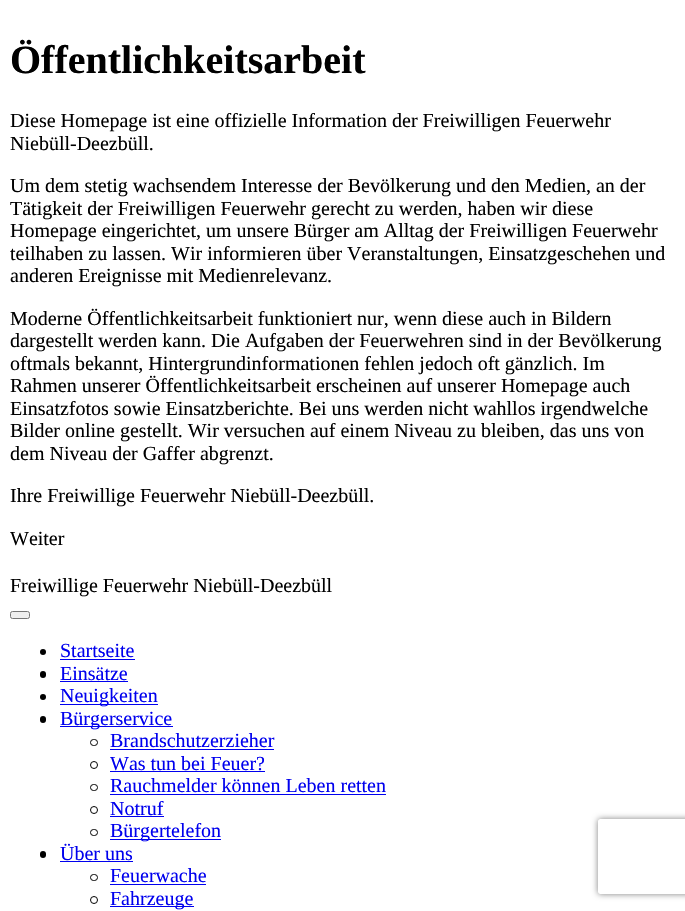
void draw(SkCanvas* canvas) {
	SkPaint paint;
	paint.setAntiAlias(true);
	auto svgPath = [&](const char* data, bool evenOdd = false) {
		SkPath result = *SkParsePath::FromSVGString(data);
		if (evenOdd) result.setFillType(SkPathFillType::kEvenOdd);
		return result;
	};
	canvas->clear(0xffffffff);
	SkFont f1(fontMgr->matchFamilyStyle("Liberation Serif", SkFontStyle::Bold()), 40);
	f1.setSubpixel(true);
	paint.setColor(0xff000000);
	canvas->drawString("Öffentlichkeitsarbeit", 10, 73, f1, paint);
	SkFont f2(fontMgr->matchFamilyStyle("Liberation Serif", SkFontStyle::Normal()), 20);
	f2.setSubpixel(true);
	canvas->drawString("Diese Homepage ist eine offizielle Information der Freiwilligen Feuerwehr", 10, 127, f2, paint);
	canvas->drawString("Niebüll-Deezbüll.", 10, 150, f2, paint);
	canvas->drawString("Um dem stetig wachsendem Interesse der Bevölkerung und den Medien, an der", 10, 192, f2, paint);
	canvas->drawString("Tätigkeit der Freiwilligen Feuerwehr gerecht zu werden, haben wir diese", 10, 215, f2, paint);
	canvas->drawString("Homepage eingerichtet, um unsere Bürger am Alltag der Freiwilligen Feuerwehr", 10, 237, f2, paint);
	canvas->drawString("teilhaben zu lassen. Wir informieren über Veranstaltungen, Einsatzgeschehen und", 10, 260, f2, paint);
	canvas->drawString("anderen Ereignisse mit Medienrelevanz.", 10, 282, f2, paint);
	canvas->drawString("Moderne Öffentlichkeitsarbeit funktioniert nur, wenn diese auch in Bildern", 10, 325, f2, paint);
	canvas->drawString("dargestellt werden kann. Die Aufgaben der Feuerwehren sind in der Bevölkerung", 10, 347, f2, paint);
	canvas->drawString("oftmals bekannt, Hintergrundinformationen fehlen jedoch oft gänzlich. Im", 10, 370, f2, paint);
	canvas->drawString("Rahmen unserer Öffentlichkeitsarbeit erscheinen auf unserer Homepage auch", 10, 392, f2, paint);
	canvas->drawString("Einsatzfotos sowie Einsatzberichte. Bei uns werden nicht wahllos irgendwelche", 10, 415, f2, paint);
	canvas->drawString("Bilder online gestellt. Wir versuchen auf einem Niveau zu bleiben, das uns von", 10, 437, f2, paint);
	canvas->drawString("dem Niveau der Gaffer abgrenzt.", 10, 460, f2, paint);
	canvas->drawString("Ihre Freiwillige Feuerwehr Niebüll-Deezbüll.", 10, 502, f2, paint);
	canvas->drawString("Weiter", 10, 545, f2, paint);
	canvas->drawString("Freiwillige Feuerwehr Niebüll-Deezbüll", 10, 592, f2, paint);
	paint.setColor(0xffefefef);
	canvas->drawRoundRect(SkRect::MakeXYWH(10.5, 611.5, 19, 7), 2, 2, paint);
	paint.setStroke(true);
	paint.setStrokeWidth(1);
	paint.setColor(0xff767676);
	canvas->drawRoundRect(SkRect::MakeXYWH(10.5, 611.5, 19, 7), 2, 2, paint);
	paint.setStroke(false);
	paint.setColor(0xff000000);
	canvas->drawCircle(43, 652, 3, paint);
	paint.setColor(0xff0000ee);
	canvas->drawString("Startseite", 60, 657, f2, paint);
	canvas->drawRect(SkRect::MakeXYWH(60, 659, 75, 1), paint);
	paint.setColor(0xff000000);
	canvas->drawRoundRect(SkRect::MakeXYWH(40, 671, 6, 7), 3, 3, paint);
	paint.setColor(0xff0000ee);
	canvas->drawString("Einsätze", 60, 680, f2, paint);
	canvas->drawRect(SkRect::MakeXYWH(60, 681, 68, 1), paint);
	paint.setColor(0xff000000);
	canvas->drawCircle(43, 697, 3, paint);
	paint.setColor(0xff0000ee);
	canvas->drawRect(SkRect::MakeXYWH(60, 704, 98, 1), paint);
	canvas->drawString("Neuigkeiten", 60, 702, f2, paint);
	paint.setColor(0xff000000);
	canvas->drawRoundRect(SkRect::MakeXYWH(40, 716, 6, 7), 3, 3, paint);
	paint.setColor(0xff0000ee);
	canvas->drawRect(SkRect::MakeXYWH(60, 726, 113, 1), paint);
	canvas->drawString("Bürgerservice", 60, 725, f2, paint);
	paint.setStroke(true);
	paint.setColor(0xff000000);
	canvas->drawRoundRect(SkRect::MakeXYWH(90.5, 739.5, 7, 6), 3, 3, paint);
	paint.setStroke(false);
	paint.setColor(0xff0000ee);
	canvas->drawString("Brandschutzerzieher", 110, 747, f2, paint);
	canvas->drawRect(SkRect::MakeXYWH(110, 749, 164, 1), paint);
	paint.setStroke(true);
	paint.setColor(0xff000000);
	canvas->drawCircle(94, 765, 3.5, paint);
	paint.setStroke(false);
	paint.setColor(0xff0000ee);
	canvas->drawString("Was tun bei Feuer?", 110, 770, f2, paint);
	canvas->drawRect(SkRect::MakeXYWH(110, 771, 155, 1), paint);
	paint.setStroke(true);
	paint.setColor(0xff000000);
	canvas->drawRoundRect(SkRect::MakeXYWH(90.5, 784.5, 7, 6), 3, 3, paint);
	paint.setStroke(false);
	paint.setColor(0xff0000ee);
	canvas->drawString("Rauchmelder können Leben retten", 110, 792, f2, paint);
	canvas->drawRect(SkRect::MakeXYWH(110, 794, 276, 1), paint);
	paint.setStroke(true);
	paint.setColor(0xff000000);
	canvas->drawCircle(94, 810, 3.5, paint);
	paint.setStroke(false);
	paint.setColor(0xff0000ee);
	canvas->drawString("Notruf", 110, 815, f2, paint);
	canvas->drawRect(SkRect::MakeXYWH(110, 816, 54, 1), paint);
	paint.setStroke(true);
	paint.setColor(0xff000000);
	canvas->drawRoundRect(SkRect::MakeXYWH(90.5, 829.5, 7, 6), 3, 3, paint);
	paint.setStroke(false);
	paint.setColor(0xff0000ee);
	canvas->drawRect(SkRect::MakeXYWH(110, 839, 111, 1), paint);
	canvas->drawString("Bürgertelefon", 110, 837, f2, paint);
	paint.setColor(0xff000000);
	canvas->drawRoundRect(SkRect::MakeXYWH(40, 851, 6, 7), 3, 3, paint);
	paint.setColor(0xff0000ee);
	canvas->drawString("Über uns", 60, 860, f2, paint);
	canvas->drawRect(SkRect::MakeXYWH(60, 861, 73, 1), paint);
	paint.setStroke(true);
	paint.setColor(0xff000000);
	canvas->drawRoundRect(SkRect::MakeXYWH(90.5, 874.5, 7, 6), 3, 3, paint);
	paint.setStroke(false);
	paint.setColor(0xff0000ee);
	canvas->drawString("Feuerwache", 110, 882, f2, paint);
	canvas->drawRect(SkRect::MakeXYWH(110, 884, 96, 1), paint);
	paint.setStroke(true);
	paint.setColor(0xff000000);
	canvas->drawCircle(94, 900, 3.5, paint);
	paint.setStroke(false);
	paint.setColor(0xff0000ee);
	canvas->drawRect(SkRect::MakeXYWH(110, 906, 84, 1), paint);
	canvas->drawString("Fahrzeuge", 110, 905, f2, paint);
	canvas->save();
	canvas->clipPath(svgPath("M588 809H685V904H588ZM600.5 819H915.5C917 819 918 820 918 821.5V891.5C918 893 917 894 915.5 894H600.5C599 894 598 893 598 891.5V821.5C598 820 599 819 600.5 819Z", true), true);
	paint.setColor(0xff808080);
	paint.setMaskFilter(SkMaskFilter::MakeBlur(kNormal_SkBlurStyle, 3));
	canvas->drawRoundRect(SkRect::MakeXYWH(598, 819, 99, 75), 2.5, 2.5, paint);
	paint.setMaskFilter(nullptr);
	canvas->restore();
}
